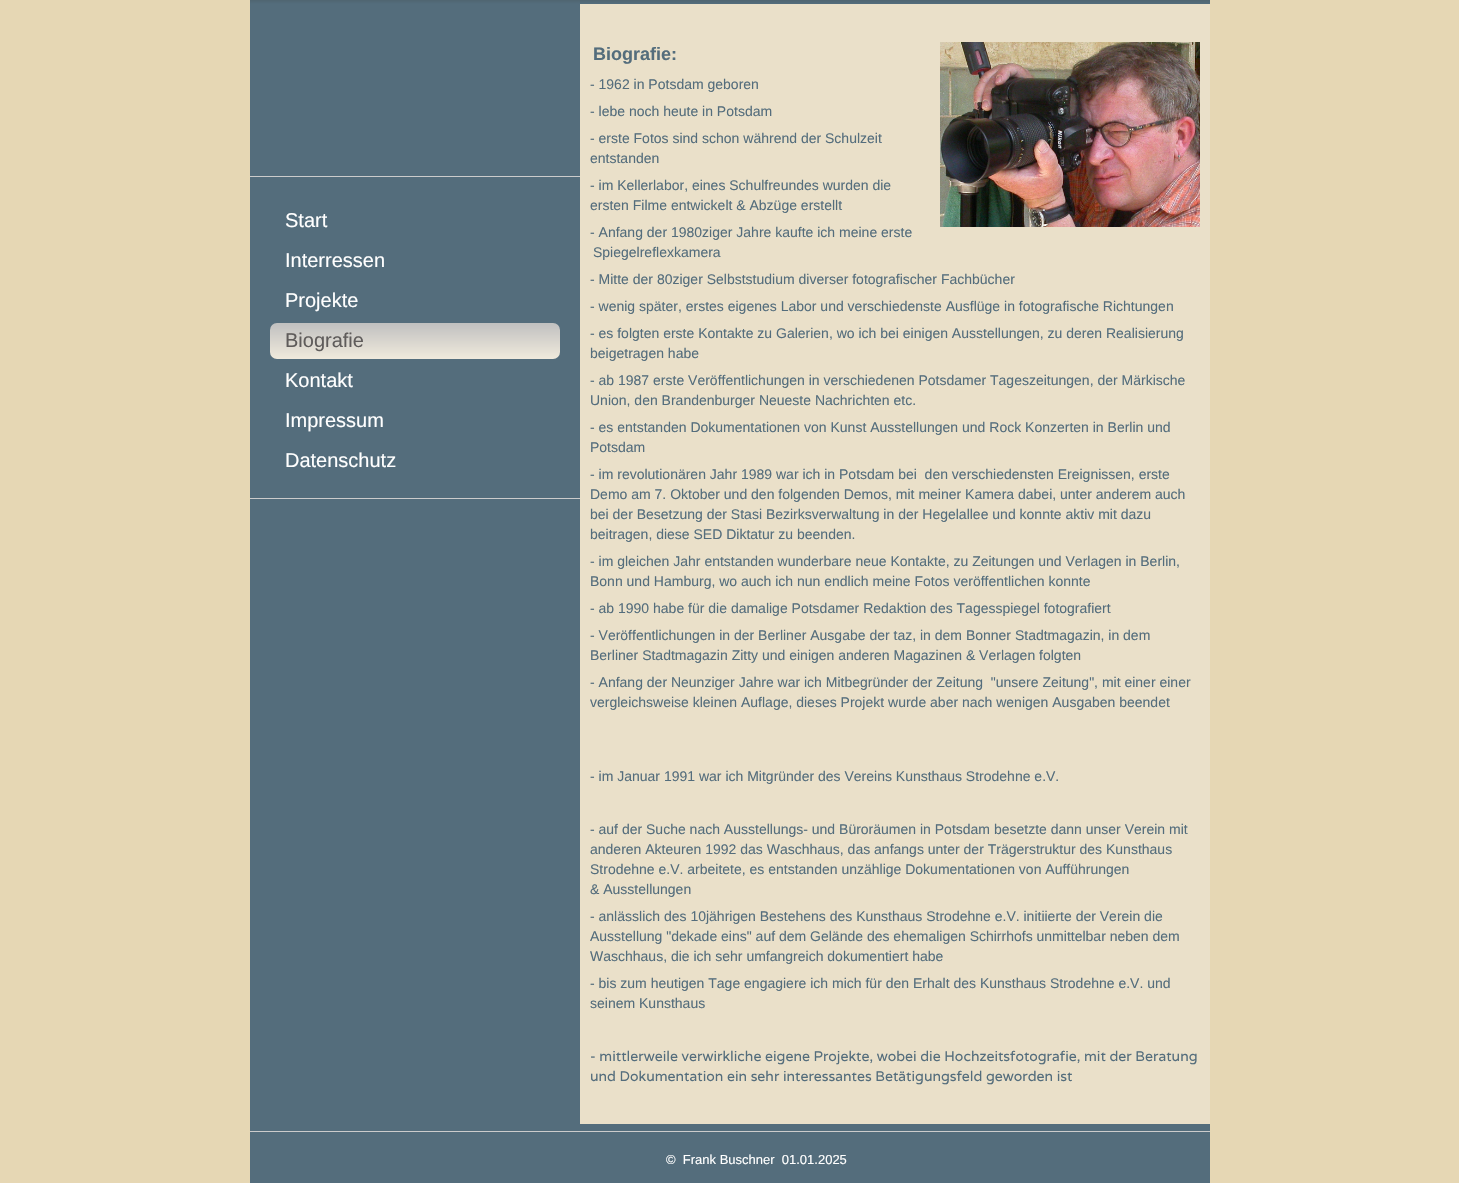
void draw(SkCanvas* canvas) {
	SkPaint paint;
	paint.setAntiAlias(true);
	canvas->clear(0xffe6d7b4);
	{
		const SkColor colors[] = {0xff3a3a3a, 0xff546d7c};
		const float stops[] = {0, 1};
		const SkPoint ends[] = {{730, -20}, {730, 4}};
		paint.setShader(SkGradientShader::MakeLinear(ends, colors, stops, 2, SkTileMode::kClamp));
		paint.setAlpha(255);
	}
	canvas->drawRect(SkRect::MakeXYWH(250, 0, 960, 4), paint);
	paint.setShader(nullptr);
	paint.setColor(0xff546d7c);
	canvas->drawRect(SkRect::MakeXYWH(250, 4, 330, 1120), paint);
	paint.setColor(0xffcccccc);
	canvas->drawRect(SkRect::MakeXYWH(250, 176, 330, 1), paint);
	SkFont f1(fontMgr->matchFamilyStyle("Liberation Sans", SkFontStyle::Normal()), 20);
	f1.setSubpixel(true);
	paint.setColor(0xffffffff);
	canvas->drawString("Start", 285, 227, f1, paint);
	canvas->drawString("Interressen", 285, 267, f1, paint);
	canvas->drawString("Projekte", 285, 307, f1, paint);
	{
		const SkColor colors[] = {0xffc0c0c0, 0xfff0eadc};
		const float stops[] = {0, 1};
		const SkPoint ends[] = {{415, 323}, {415, 359}};
		paint.setShader(SkGradientShader::MakeLinear(ends, colors, stops, 2, SkTileMode::kClamp));
		paint.setAlpha(255);
	}
	canvas->drawRoundRect(SkRect::MakeXYWH(270, 323, 290, 36), 7, 7, paint);
	paint.setShader(nullptr);
	paint.setColor(0xff5f5c5b);
	canvas->drawString("Biografie", 285, 347, f1, paint);
	paint.setColor(0xffffffff);
	canvas->drawString("Kontakt", 285, 387, f1, paint);
	canvas->drawString("Impressum", 285, 427, f1, paint);
	canvas->drawString("Datenschutz", 285, 467, f1, paint);
	paint.setColor(0xffcccccc);
	canvas->drawRect(SkRect::MakeXYWH(250, 498, 330, 1), paint);
	paint.setColor(0xffeae0c9);
	canvas->drawRect(SkRect::MakeXYWH(580, 4, 630, 1120), paint);
	SkFont f2(fontMgr->matchFamilyStyle("Liberation Sans", SkFontStyle::Bold()), 18);
	f2.setSubpixel(true);
	paint.setColor(0xff546d7c);
	canvas->drawString("Biografie:", 593, 60, f2, paint);
	canvas->drawImageRect(SkImages::DeferredFromEncodedData(SkData::MakeFromFileName("img1.png")), SkRect::MakeXYWH(940, 42, 260, 185), SkSamplingOptions());
	SkFont f3(fontMgr->matchFamilyStyle("Liberation Sans", SkFontStyle::Normal()), 14);
	f3.setSubpixel(true);
	canvas->drawString("- 1962 in Potsdam geboren", 590, 89, f3, paint);
	canvas->drawString("- lebe noch heute in Potsdam", 590, 116, f3, paint);
	canvas->drawString("- erste Fotos sind schon während der Schulzeit", 590, 143, f3, paint);
	canvas->drawString("entstanden", 590, 163, f3, paint);
	canvas->drawString("- im Kellerlabor, eines Schulfreundes wurden die", 590, 190, f3, paint);
	canvas->drawString("ersten Filme entwickelt & Abzüge erstellt", 590, 210, f3, paint);
	canvas->drawString("- Anfang der 1980ziger Jahre kaufte ich meine erste", 590, 237, f3, paint);
	canvas->drawString("Spiegelreflexkamera", 593, 257, f3, paint);
	canvas->drawString("- Mitte der 80ziger Selbststudium diverser fotografischer Fachbücher", 590, 284, f3, paint);
	canvas->drawString("- wenig später, erstes eigenes Labor und verschiedenste Ausflüge in fotografische Richtungen", 590, 311, f3, paint);
	canvas->drawString("- es folgten erste Kontakte zu Galerien, wo ich bei einigen Ausstellungen, zu deren Realisierung", 590, 338, f3, paint);
	canvas->drawString("beigetragen habe", 590, 358, f3, paint);
	canvas->drawString("- ab 1987 erste Veröffentlichungen in verschiedenen Potsdamer Tageszeitungen, der Märkische", 590, 385, f3, paint);
	canvas->drawString("Union, den Brandenburger Neueste Nachrichten etc.", 590, 405, f3, paint);
	canvas->drawString("- es entstanden Dokumentationen von Kunst Ausstellungen und Rock Konzerten in Berlin und", 590, 432, f3, paint);
	canvas->drawString("Potsdam", 590, 452, f3, paint);
	canvas->drawString("- im revolutionären Jahr 1989 war ich in Potsdam bei  den verschiedensten Ereignissen, erste", 590, 479, f3, paint);
	canvas->drawString("Demo am 7. Oktober und den folgenden Demos, mit meiner Kamera dabei, unter anderem auch", 590, 499, f3, paint);
	canvas->drawString("bei der Besetzung der Stasi Bezirksverwaltung in der Hegelallee und konnte aktiv mit dazu", 590, 519, f3, paint);
	canvas->drawString("beitragen, diese SED Diktatur zu beenden.", 590, 539, f3, paint);
	canvas->drawString("- im gleichen Jahr entstanden wunderbare neue Kontakte, zu Zeitungen und Verlagen in Berlin,", 590, 566, f3, paint);
	canvas->drawString("Bonn und Hamburg, wo auch ich nun endlich meine Fotos veröffentlichen konnte", 590, 586, f3, paint);
	canvas->drawString("- ab 1990 habe für die damalige Potsdamer Redaktion des Tagesspiegel fotografiert", 590, 613, f3, paint);
	canvas->drawString("- Veröffentlichungen in der Berliner Ausgabe der taz, in dem Bonner Stadtmagazin, in dem", 590, 640, f3, paint);
	canvas->drawString("Berliner Stadtmagazin Zitty und einigen anderen Magazinen & Verlagen folgten", 590, 660, f3, paint);
	canvas->drawString("- Anfang der Neunziger Jahre war ich Mitbegründer der Zeitung  \"unsere Zeitung\", mit einer einer", 590, 687, f3, paint);
	canvas->drawString("vergleichsweise kleinen Auflage, dieses Projekt wurde aber nach wenigen Ausgaben beendet", 590, 707, f3, paint);
	canvas->drawString("- im Januar 1991 war ich Mitgründer des Vereins Kunsthaus Strodehne e.V.", 590, 781, f3, paint);
	canvas->drawString("- auf der Suche nach Ausstellungs- und Büroräumen in Potsdam besetzte dann unser Verein mit", 590, 834, f3, paint);
	canvas->drawString("anderen Akteuren 1992 das Waschhaus, das anfangs unter der Trägerstruktur des Kunsthaus", 590, 854, f3, paint);
	canvas->drawString("Strodehne e.V. arbeitete, es entstanden unzählige Dokumentationen von Aufführungen", 590, 874, f3, paint);
	canvas->drawString("& Ausstellungen", 590, 894, f3, paint);
	canvas->drawString("- anlässlich des 10jährigen Bestehens des Kunsthaus Strodehne e.V. initiierte der Verein die", 590, 921, f3, paint);
	canvas->drawString("Ausstellung \"dekade eins\" auf dem Gelände des ehemaligen Schirrhofs unmittelbar neben dem", 590, 941, f3, paint);
	canvas->drawString("Waschhaus, die ich sehr umfangreich dokumentiert habe", 590, 961, f3, paint);
	canvas->drawString("- bis zum heutigen Tage engagiere ich mich für den Erhalt des Kunsthaus Strodehne e.V. und", 590, 988, f3, paint);
	canvas->drawString("seinem Kunsthaus", 590, 1008, f3, paint);
	SkFont f4(fontMgr->matchFamilyStyle("Varela", SkFontStyle::Normal()), 14);
	f4.setSubpixel(true);
	canvas->drawString("- mittlerweile verwirkliche eigene Projekte, wobei die Hochzeitsfotografie, mit der Beratung", 590, 1061, f4, paint);
	canvas->drawString("und Dokumentation ein sehr interessantes Betätigungsfeld geworden ist", 590, 1081, f4, paint);
	canvas->drawRect(SkRect::MakeXYWH(250, 1124, 960, 59), paint);
	paint.setColor(0xffcccccc);
	canvas->drawRect(SkRect::MakeXYWH(250, 1131, 960, 1), paint);
	SkFont f5(fontMgr->matchFamilyStyle("Liberation Sans", SkFontStyle::Normal()), 13);
	f5.setSubpixel(true);
	paint.setColor(0xffffffff);
	canvas->drawString("©  Frank Buschner  01.01.2025", 666, 1164, f5, paint);
}
